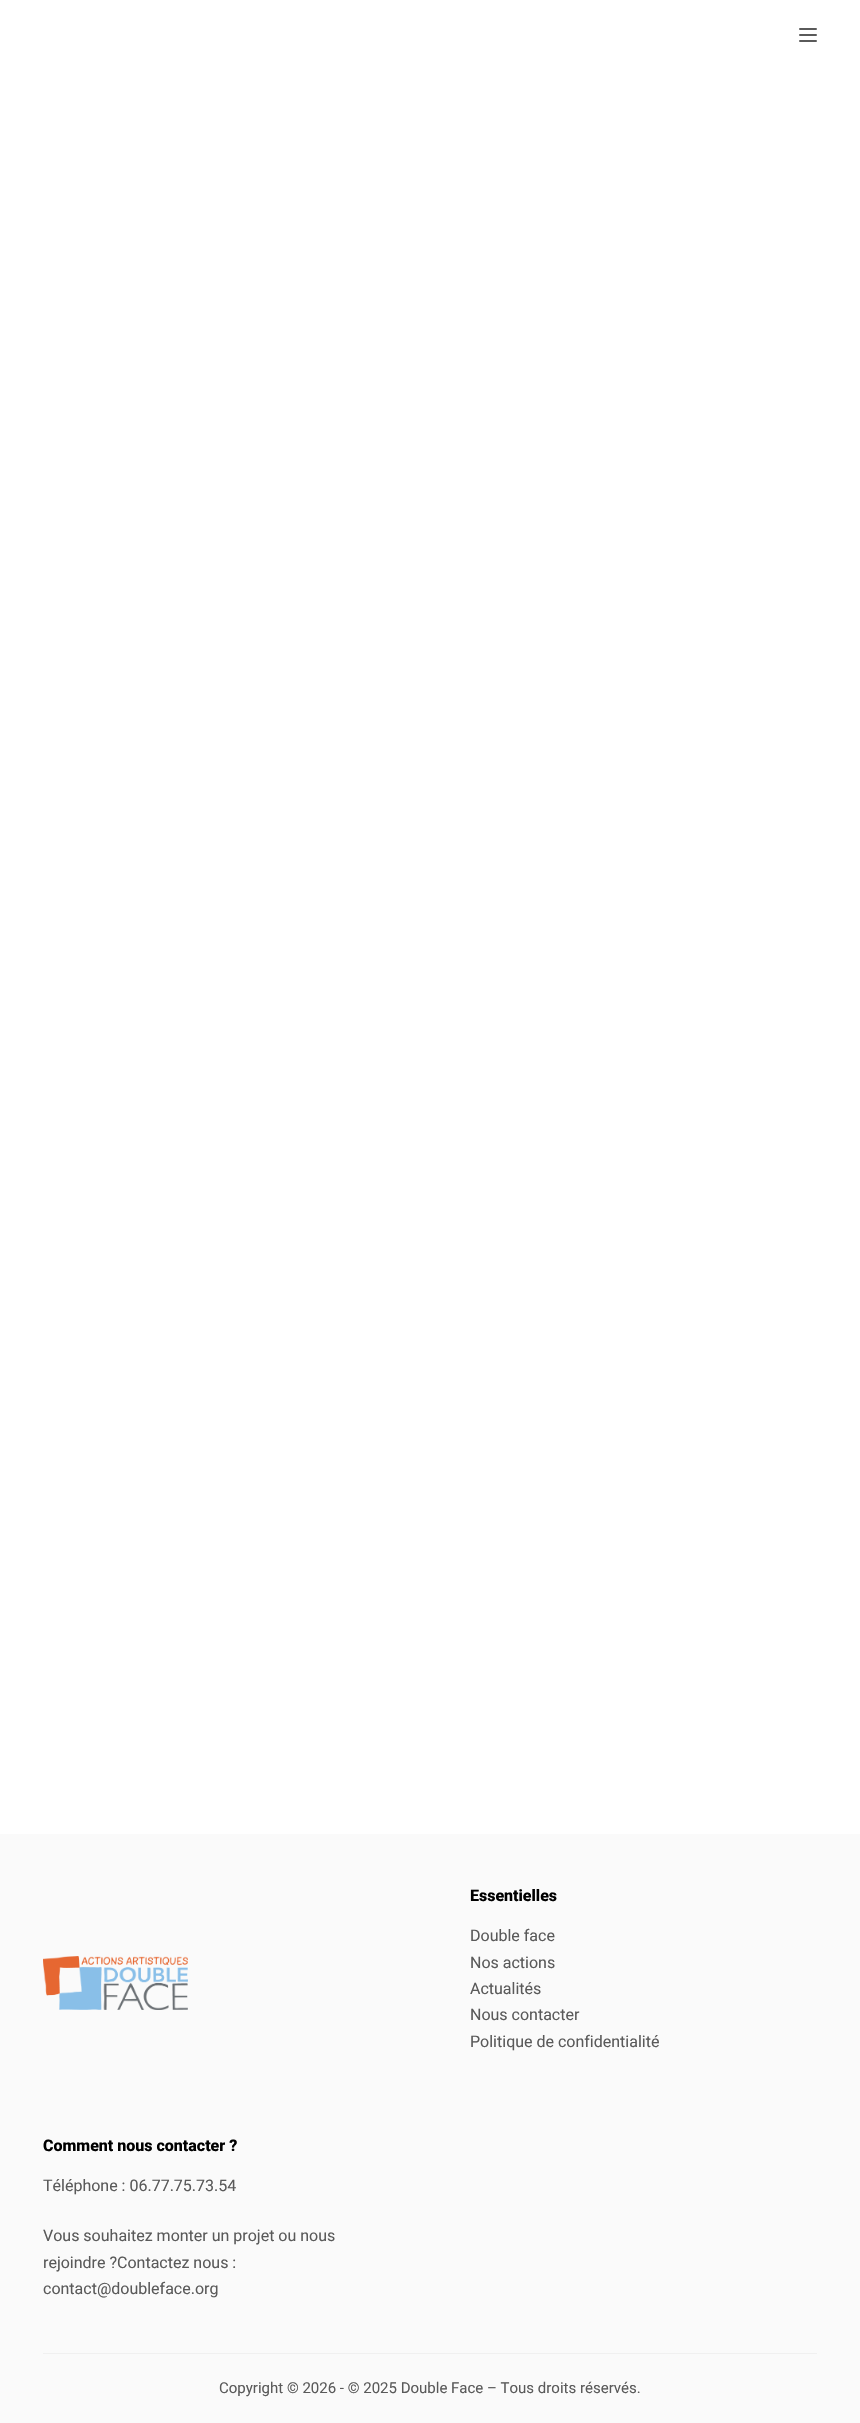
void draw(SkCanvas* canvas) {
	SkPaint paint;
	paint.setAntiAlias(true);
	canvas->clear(0xffffffff);
	paint.setColor(0xff5a5a5a);
	canvas->drawRoundRect(SkRect::MakeXYWH(799, 28, 18, 2), 1, 1, paint);
	canvas->drawRoundRect(SkRect::MakeXYWH(799, 34, 18, 2), 1, 1, paint);
	canvas->drawRoundRect(SkRect::MakeXYWH(799, 40, 18, 2), 1, 1, paint);
	paint.setColor(0xfffafafa);
	canvas->drawRect(SkRect::MakeXYWH(0, 1834, 860, 589), paint);
	canvas->drawImageRect(SkImages::DeferredFromEncodedData(SkData::MakeFromFileName("img1.png")), SkRect::MakeXYWH(43, 1956, 145, 54), SkSamplingOptions());
	SkFont f1(fontMgr->matchFamilyStyle("Roboto", SkFontStyle(800, SkFontStyle::kNormal_Width, SkFontStyle::kUpright_Slant)), 16);
	f1.setSubpixel(true);
	paint.setColor(0xff000000);
	canvas->drawString("Essentielles", 470, 1901, f1, paint);
	SkFont f2(fontMgr->matchFamilyStyle("Roboto", SkFontStyle::Normal()), 16);
	f2.setSubpixel(true);
	paint.setColor(0xff5a5a5a);
	canvas->drawString("Double face", 470, 1941, f2, paint);
	canvas->drawString("Nos actions", 470, 1968, f2, paint);
	canvas->drawString("Actualités", 470, 1994, f2, paint);
	canvas->drawString("Nous contacter", 470, 2020, f2, paint);
	canvas->drawString("Politique de confidentialité", 470, 2047, f2, paint);
	paint.setColor(0xff000000);
	canvas->drawString("Comment nous contacter ?", 43, 2151, f1, paint);
	paint.setColor(0xff5a5a5a);
	canvas->drawString("Téléphone : 06.77.75.73.54", 43, 2191, f2, paint);
	canvas->drawString("Vous souhaitez monter un projet ou nous", 43, 2241, f2, paint);
	canvas->drawString("rejoindre ?Contactez nous :", 43, 2268, f2, paint);
	canvas->drawString("contact@doubleface.org", 43, 2294, f2, paint);
	paint.setColor(0xfff0f0f0);
	canvas->drawRect(SkRect::MakeXYWH(43, 2353, 774, 1), paint);
	SkFont f3(fontMgr->matchFamilyStyle("Roboto", SkFontStyle::Normal()), 15);
	f3.setSubpixel(true);
	paint.setColor(0xff5a5a5a);
	canvas->drawString("Copyright © 2026 - © 2025 Double Face – Tous droits réservés.", 219, 2393, f3, paint);
}
